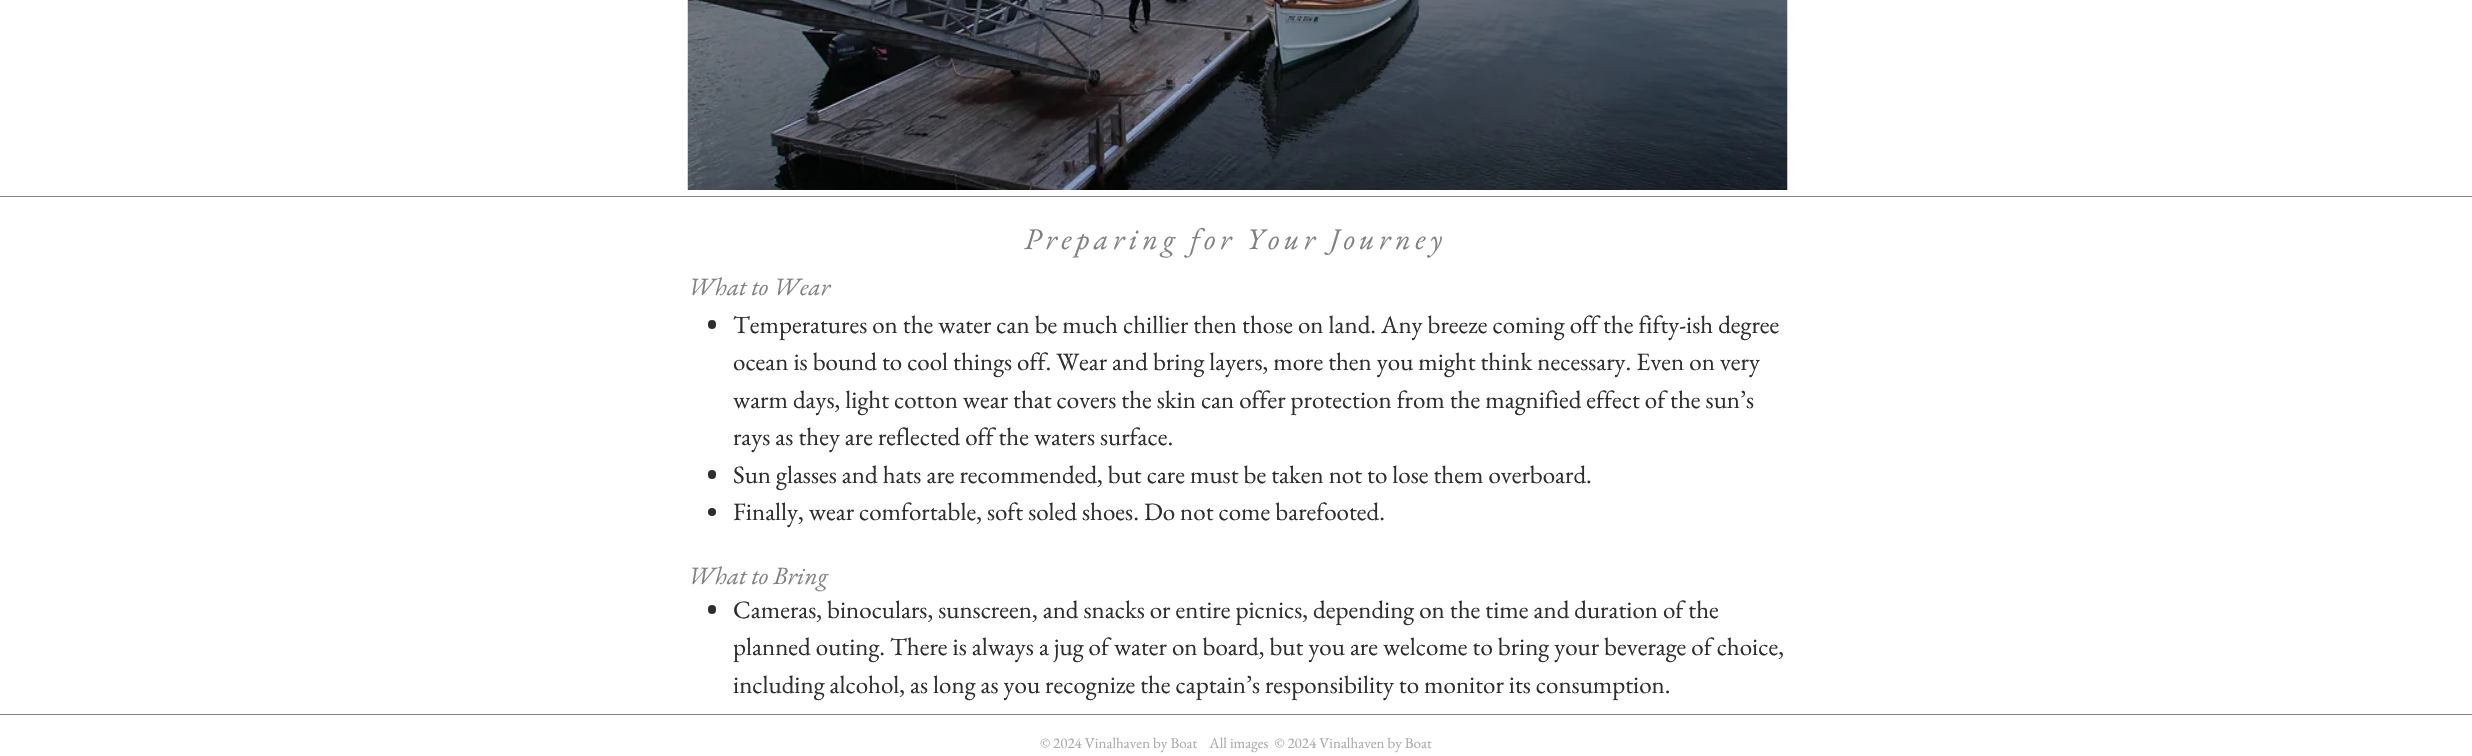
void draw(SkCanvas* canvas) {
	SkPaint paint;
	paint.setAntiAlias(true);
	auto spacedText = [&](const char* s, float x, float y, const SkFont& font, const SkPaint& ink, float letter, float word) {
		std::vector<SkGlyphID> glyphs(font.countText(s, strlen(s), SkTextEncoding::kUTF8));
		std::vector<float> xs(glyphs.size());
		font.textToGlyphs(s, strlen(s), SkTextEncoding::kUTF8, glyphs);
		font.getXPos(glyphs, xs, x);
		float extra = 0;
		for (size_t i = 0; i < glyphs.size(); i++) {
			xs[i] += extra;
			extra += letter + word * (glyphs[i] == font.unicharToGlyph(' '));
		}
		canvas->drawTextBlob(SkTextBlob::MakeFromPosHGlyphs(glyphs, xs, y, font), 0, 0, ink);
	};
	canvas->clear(0xffffffff);
	canvas->drawImageRect(SkImages::DeferredFromEncodedData(SkData::MakeFromFileName("img1.png")), SkRect::MakeXYWH(687, 0, 1101, 190), SkSamplingOptions());
	paint.setColor(0xff818181);
	canvas->drawRect(SkRect::MakeXYWH(0, 196, 2472, 1), paint);
	canvas->drawRect(SkRect::MakeXYWH(0, 714, 2472, 1), paint);
	SkFont f1(fontMgr->matchFamilyStyle("EB Garamond", SkFontStyle::Italic()), 30);
	f1.setSubpixel(true);
	spacedText("Preparing for Your Journey", 1024, 249, f1, paint, 4.5, 0);
	SkFont f2(fontMgr->matchFamilyStyle("EB Garamond", SkFontStyle::Italic()), 25);
	f2.setSubpixel(true);
	canvas->drawString("What to Wear", 688, 295, f2, paint);
	paint.setColor(0xff302d2d);
	canvas->drawRoundRect(SkRect::MakeXYWH(708, 320, 8, 9), 4, 4, paint);
	SkFont f3(fontMgr->matchFamilyStyle("EB Garamond", SkFontStyle::Normal()), 25);
	f3.setSubpixel(true);
	canvas->drawString("Temperatures on the water can be much chillier then those on land. Any breeze coming off the fifty-ish degree", 733, 333, f3, paint);
	canvas->drawString("ocean is bound to cool things off. Wear and bring layers, more then you might think necessary. Even on very", 733, 370, f3, paint);
	canvas->drawString("warm days, light cotton wear that covers the skin can offer protection from the magnified effect of the sun’s", 733, 408, f3, paint);
	canvas->drawString("rays as they are reflected off the waters surface.", 733, 445, f3, paint);
	canvas->drawRoundRect(SkRect::MakeXYWH(708, 470, 8, 9), 4, 4, paint);
	canvas->drawString("Sun glasses and hats are recommended, but care must be taken not to lose them overboard.", 733, 483, f3, paint);
	canvas->drawCircle(712, 512, 4, paint);
	canvas->drawString("Finally, wear comfortable, soft soled shoes. Do not come barefooted.", 733, 520, f3, paint);
	paint.setColor(0xff818181);
	canvas->drawString("What to Bring", 688, 584, f2, paint);
	paint.setColor(0xff302d2d);
	canvas->drawRoundRect(SkRect::MakeXYWH(708, 605, 8, 9), 4, 4, paint);
	canvas->drawString("Cameras, binoculars, sunscreen, and snacks or entire picnics, depending on the time and duration of the", 733, 618, f3, paint);
	canvas->drawString("planned outing. There is always a jug of water on board, but you are welcome to bring your beverage of choice,", 733, 655, f3, paint);
	canvas->drawString("including alcohol, as long as you recognize the captain’s responsibility to monitor its consumption.", 733, 693, f3, paint);
	SkFont f4(fontMgr->matchFamilyStyle("EB Garamond", SkFontStyle::Normal()), 15);
	f4.setSubpixel(true);
	paint.setColor(0xffaaaaaa);
	canvas->drawString("© 2024 Vinalhaven by Boat    All images  © 2024 Vinalhaven by Boat", 1040, 748, f4, paint);
}
